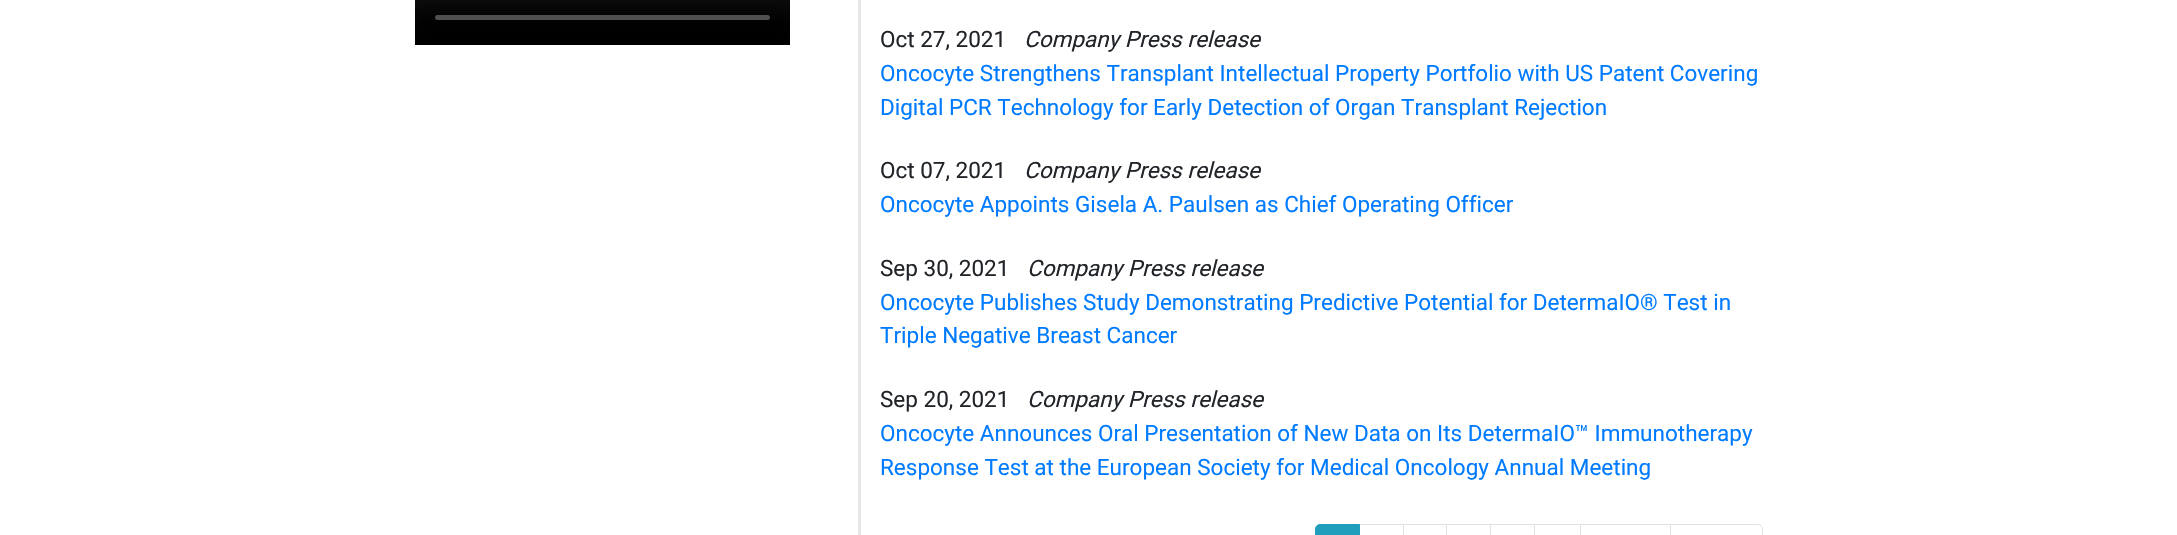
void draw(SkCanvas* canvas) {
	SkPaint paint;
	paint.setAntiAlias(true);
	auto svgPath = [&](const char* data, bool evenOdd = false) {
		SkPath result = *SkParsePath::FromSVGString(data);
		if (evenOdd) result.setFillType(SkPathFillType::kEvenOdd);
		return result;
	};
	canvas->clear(0xffffffff);
	canvas->drawImageRect(SkImages::DeferredFromEncodedData(SkData::MakeFromFileName("img1.png")), SkRect::MakeXYWH(415, 0, 375, 45), SkSamplingOptions());
	paint.setColor(0xffe7e7e7);
	canvas->drawRect(SkRect::MakeXYWH(858, 0, 3, 535), paint);
	SkFont f1(fontMgr->matchFamilyStyle("Roboto", SkFontStyle::Normal()), 22.5);
	f1.setSubpixel(true);
	paint.setColor(0xff212529);
	canvas->drawString("Oct 27, 2021", 880, 47, f1, paint);
	SkFont f2(fontMgr->matchFamilyStyle("Roboto", SkFontStyle::Italic()), 22.5);
	f2.setSubpixel(true);
	canvas->drawString("Company Press release", 1024, 47, f2, paint);
	paint.setColor(0xff007bff);
	canvas->drawString("Oncocyte Strengthens Transplant Intellectual Property Portfolio with US Patent Covering", 880, 81, f1, paint);
	canvas->drawString("Digital PCR Technology for Early Detection of Organ Transplant Rejection", 880, 115, f1, paint);
	paint.setColor(0xff212529);
	canvas->drawString("Oct 07, 2021", 880, 178, f1, paint);
	canvas->drawString("Company Press release", 1024, 178, f2, paint);
	paint.setColor(0xff007bff);
	canvas->drawString("Oncocyte Appoints Gisela A. Paulsen as Chief Operating Officer", 880, 212, f1, paint);
	paint.setColor(0xff212529);
	canvas->drawString("Sep 30, 2021", 880, 276, f1, paint);
	canvas->drawString("Company Press release", 1027, 276, f2, paint);
	paint.setColor(0xff007bff);
	canvas->drawString("Oncocyte Publishes Study Demonstrating Predictive Potential for DetermaIO® Test in", 880, 310, f1, paint);
	canvas->drawString("Triple Negative Breast Cancer", 880, 343, f1, paint);
	paint.setColor(0xff212529);
	canvas->drawString("Sep 20, 2021", 880, 407, f1, paint);
	canvas->drawString("Company Press release", 1027, 407, f2, paint);
	paint.setColor(0xff007bff);
	canvas->drawString("Oncocyte Announces Oral Presentation of New Data on Its DetermaIO™ Immunotherapy", 880, 441, f1, paint);
	canvas->drawString("Response Test at the European Society for Medical Oncology Annual Meeting", 880, 475, f1, paint);
	paint.setStroke(true);
	paint.setStrokeWidth(1);
	paint.setColor(0xffdee2e6);
	canvas->drawRect(SkRect::MakeXYWH(1359.5, 524.5, 44, 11), paint);
	paint.setStroke(false);
	paint.setColor(0xff219ebc);
	canvas->drawPath(svgPath("M1320 524.5H1359.5V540.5H1320C1317.5 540.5 1315.5 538.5 1315.5 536V529C1315.5 526.5 1317.5 524.5 1320 524.5Z"), paint);
	paint.setStroke(true);
	canvas->drawPath(svgPath("M1320 524.5H1359.5V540.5H1320C1317.5 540.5 1315.5 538.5 1315.5 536V529C1315.5 526.5 1317.5 524.5 1320 524.5Z"), paint);
	paint.setColor(0xffdee2e6);
	canvas->drawRect(SkRect::MakeXYWH(1403.5, 524.5, 44, 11), paint);
	paint.setStroke(false);
	paint.setColor(0xffffffff);
	canvas->drawRect(SkRect::MakeXYWH(1447, 525, 1, 10), paint);
	paint.setStroke(true);
	paint.setColor(0xffdee2e6);
	canvas->drawRect(SkRect::MakeXYWH(1446.5, 524.5, 44, 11), paint);
	canvas->drawRect(SkRect::MakeXYWH(1490.5, 524.5, 44, 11), paint);
	canvas->drawRect(SkRect::MakeXYWH(1534.5, 524.5, 46, 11), paint);
	canvas->drawRect(SkRect::MakeXYWH(1580.5, 524.5, 90, 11), paint);
	paint.setStroke(false);
	paint.setColor(0xffffffff);
	canvas->drawPath(svgPath("M1670.5 524.5H1758C1760.5 524.5 1762.5 526.5 1762.5 529V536C1762.5 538.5 1760.5 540.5 1758 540.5H1670.5Z"), paint);
	paint.setStroke(true);
	paint.setColor(0xffdee2e6);
	canvas->drawPath(svgPath("M1670.5 524.5H1758C1760.5 524.5 1762.5 526.5 1762.5 529V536C1762.5 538.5 1760.5 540.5 1758 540.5H1670.5Z"), paint);
}
